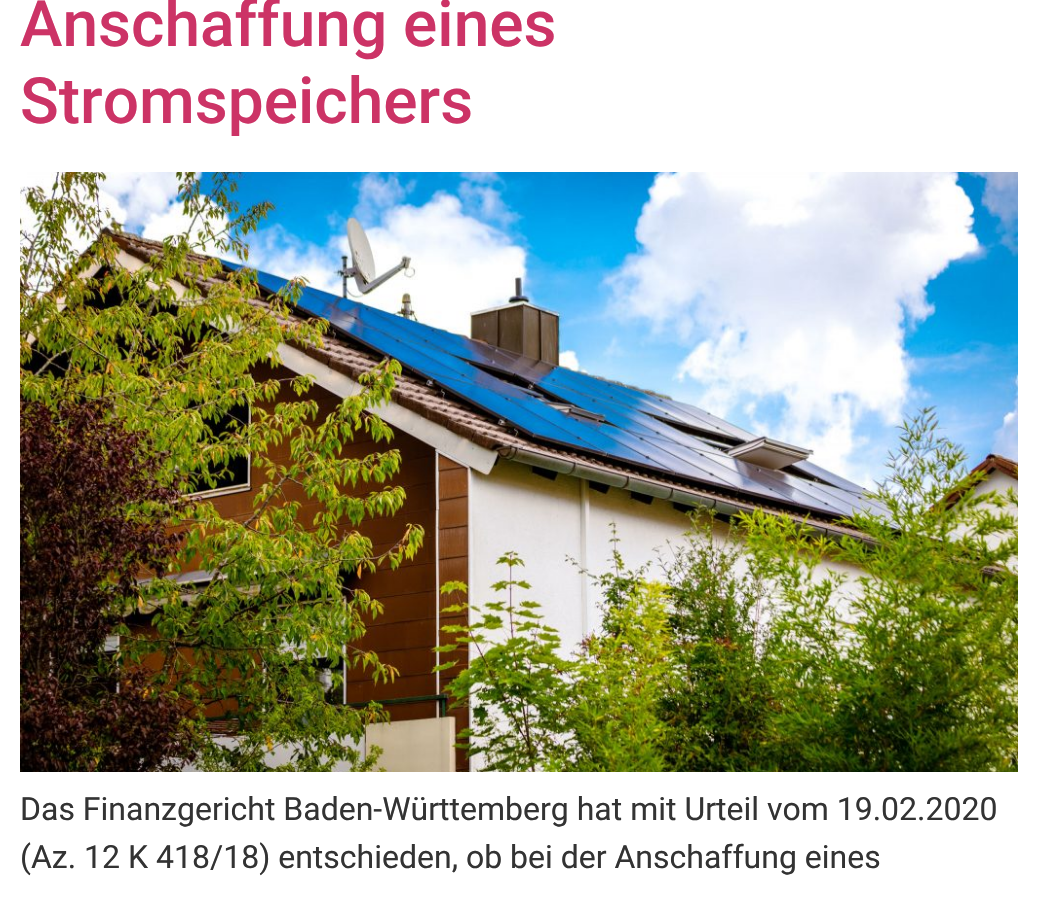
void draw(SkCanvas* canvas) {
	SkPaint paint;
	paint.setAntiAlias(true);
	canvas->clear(0xffffffff);
	SkFont f1(fontMgr->matchFamilyStyle("Roboto", SkFontStyle(500, SkFontStyle::kNormal_Width, SkFontStyle::kUpright_Slant)), 64);
	f1.setSubpixel(true);
	paint.setColor(0xffcc3366);
	canvas->drawString("Anschaffung eines", 20, 46, f1, paint);
	canvas->drawString("Stromspeichers", 20, 123, f1, paint);
	canvas->drawImageRect(SkImages::DeferredFromEncodedData(SkData::MakeFromFileName("img1.png")), SkRect::MakeXYWH(20, 172, 998, 600), SkSamplingOptions());
	SkFont f2(fontMgr->matchFamilyStyle("Roboto", SkFontStyle::Normal()), 32);
	f2.setSubpixel(true);
	paint.setColor(0xff333333);
	canvas->drawString("Das Finanzgericht Baden-Württemberg hat mit Urteil vom 19.02.2020", 20, 820, f2, paint);
	canvas->drawString("(Az. 12 K 418/18) entschieden, ob bei der Anschaffung eines", 20, 868, f2, paint);
}
